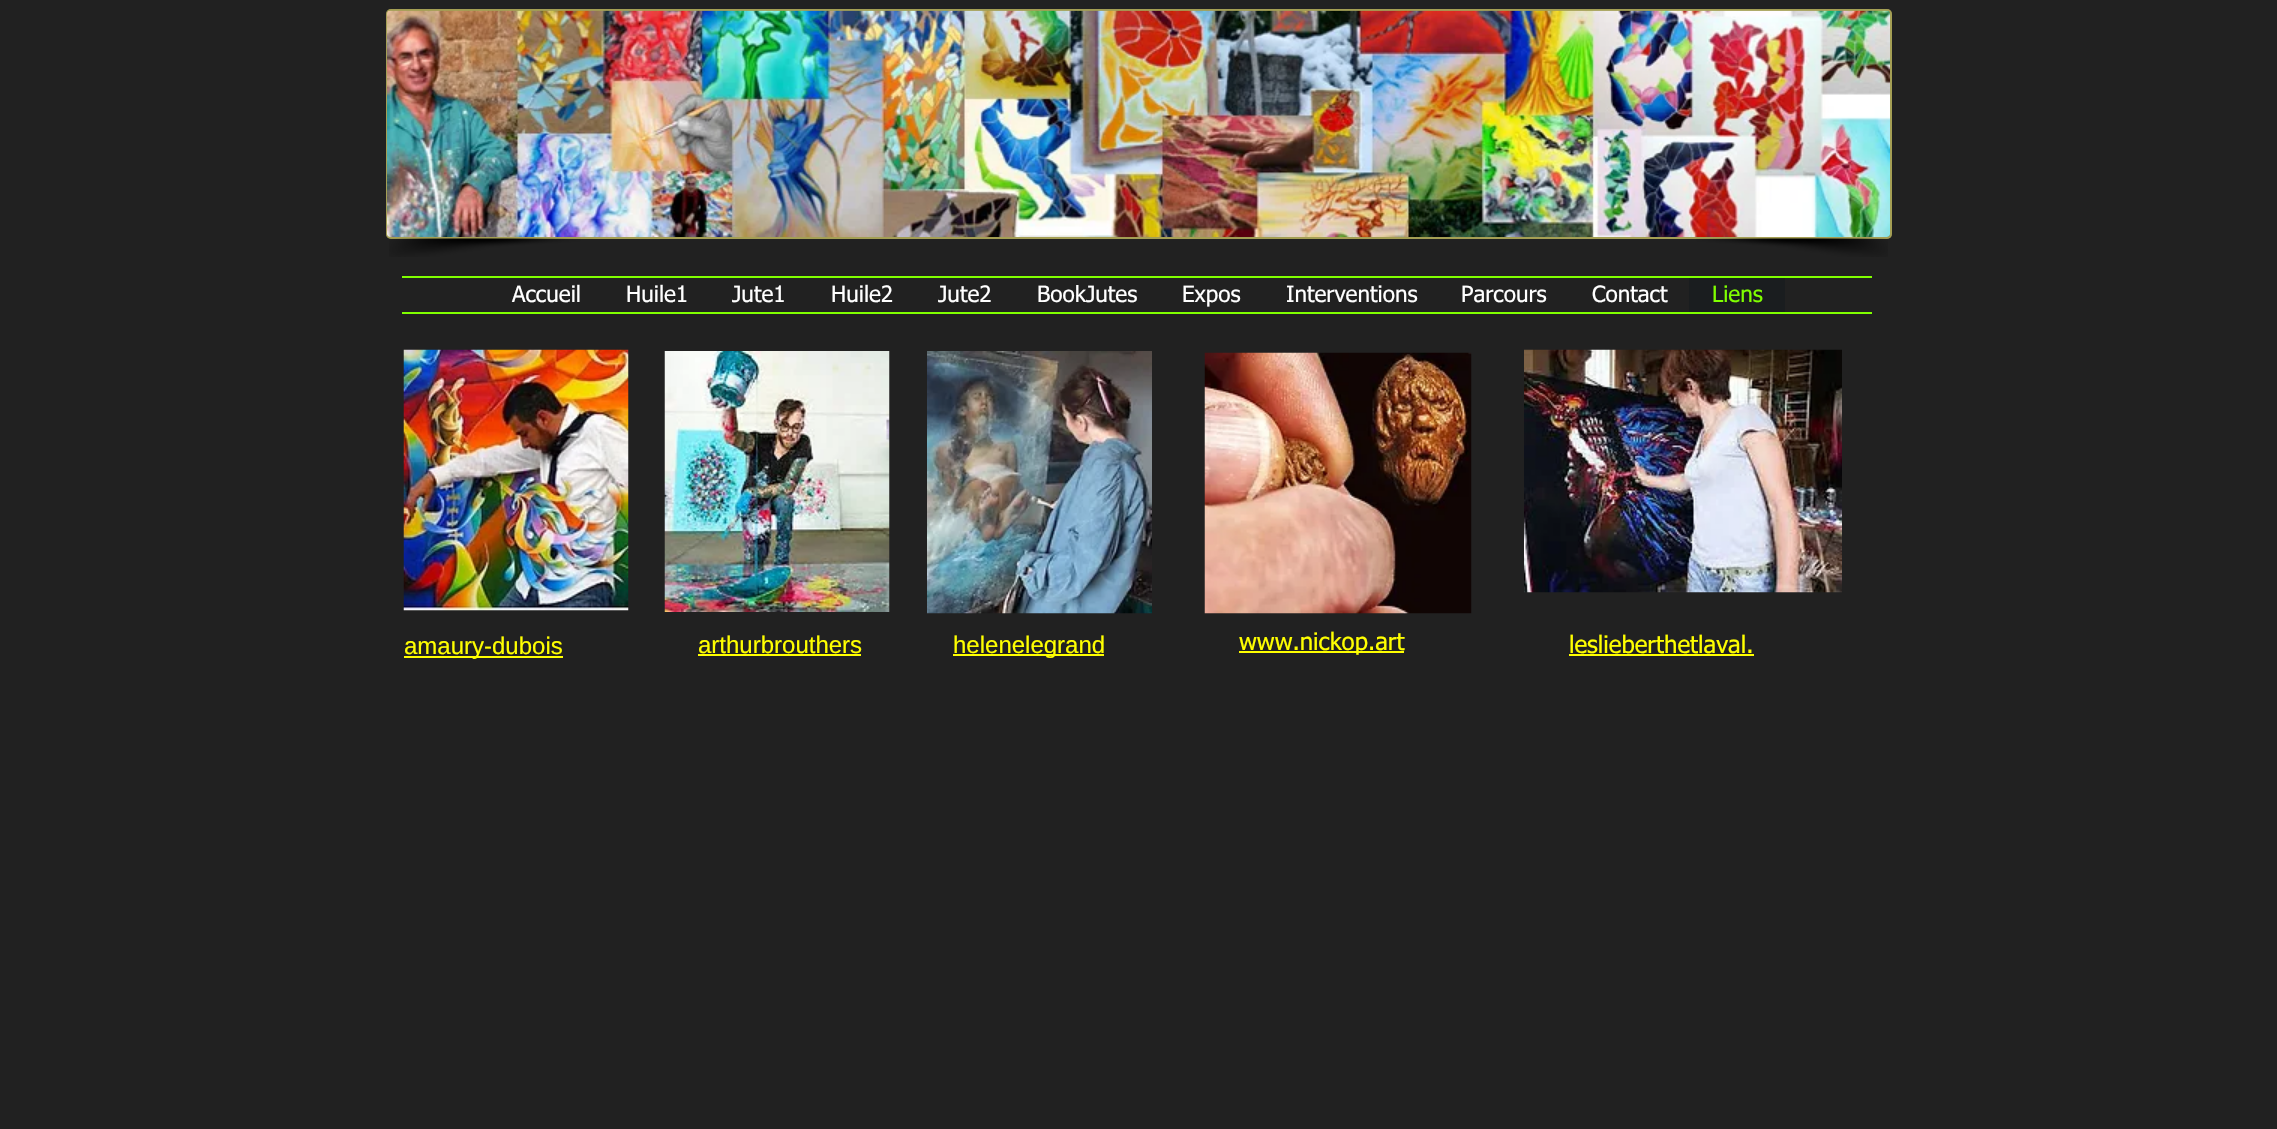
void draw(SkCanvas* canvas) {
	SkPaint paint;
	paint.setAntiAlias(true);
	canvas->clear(0xff212121);
	paint.setColor(0x99bcb55d);
	canvas->drawRoundRect(SkRect::MakeXYWH(386, 9, 1506, 230), 5, 5, paint);
	paint.setStroke(true);
	paint.setStrokeWidth(2);
	canvas->drawRoundRect(SkRect::MakeXYWH(387, 10, 1504, 228), 4, 4, paint);
	canvas->drawImageRect(SkImages::DeferredFromEncodedData(SkData::MakeFromFileName("img1.png")), SkRect::MakeXYWH(387, 10, 1503, 227), SkSamplingOptions());
	canvas->drawImageRect(SkImages::DeferredFromEncodedData(SkData::MakeFromFileName("img2.png")), SkRect::MakeXYWH(389, 238, 192, 19), SkSamplingOptions());
	canvas->drawImageRect(SkImages::DeferredFromEncodedData(SkData::MakeFromFileName("img3.png")), SkRect::MakeXYWH(1696, 238, 192, 19), SkSamplingOptions());
	paint.setStroke(false);
	paint.setColor(0xff80ff00);
	canvas->drawRect(SkRect::MakeXYWH(402, 276, 1470, 2), paint);
	canvas->drawRect(SkRect::MakeXYWH(402, 312, 1470, 2), paint);
	SkFont f1(fontMgr->matchFamilyStyle("tahoma", SkFontStyle::Normal()), 22.5);
	f1.setSubpixel(true);
	paint.setColor(0xffffffff);
	canvas->drawString("Accueil", 512, 302, f1, paint);
	canvas->drawString("Huile1", 626, 302, f1, paint);
	canvas->drawString("Jute1", 732, 302, f1, paint);
	canvas->drawString("Huile2", 831, 302, f1, paint);
	canvas->drawString("Jute2", 938, 302, f1, paint);
	canvas->drawString("BookJutes", 1037, 302, f1, paint);
	canvas->drawString("Expos", 1182, 302, f1, paint);
	canvas->drawString("Interventions", 1286, 302, f1, paint);
	canvas->drawString("Parcours", 1461, 302, f1, paint);
	canvas->drawString("Contact", 1592, 302, f1, paint);
	paint.setColor(0xff1a1d1f);
	canvas->drawRect(SkRect::MakeXYWH(1689, 278, 96, 34), paint);
	paint.setColor(0xff80ff00);
	canvas->drawString("Liens", 1712, 302, f1, paint);
	canvas->drawImageRect(SkImages::DeferredFromEncodedData(SkData::MakeFromFileName("img4.png")), SkRect::MakeXYWH(403, 349, 226, 262), SkSamplingOptions());
	canvas->drawImageRect(SkImages::DeferredFromEncodedData(SkData::MakeFromFileName("img5.png")), SkRect::MakeXYWH(664, 351, 226, 261), SkSamplingOptions());
	canvas->drawImageRect(SkImages::DeferredFromEncodedData(SkData::MakeFromFileName("img6.png")), SkRect::MakeXYWH(927, 351, 225, 263), SkSamplingOptions());
	canvas->drawImageRect(SkImages::DeferredFromEncodedData(SkData::MakeFromFileName("img7.png")), SkRect::MakeXYWH(1204, 352, 268, 262), SkSamplingOptions());
	canvas->drawImageRect(SkImages::DeferredFromEncodedData(SkData::MakeFromFileName("img8.png")), SkRect::MakeXYWH(1524, 349, 318, 244), SkSamplingOptions());
	paint.setColor(0xffffff00);
	canvas->drawRect(SkRect::MakeXYWH(404, 656, 159, 2), paint);
	SkFont f2(fontMgr->matchFamilyStyle("Liberation Sans", SkFontStyle::Normal()), 24);
	f2.setSubpixel(true);
	canvas->drawString("amaury-dubois", 404, 654, f2, paint);
	canvas->drawString("arthurbrouthers", 698, 653, f2, paint);
	canvas->drawRect(SkRect::MakeXYWH(698, 654, 163, 2), paint);
	canvas->drawRect(SkRect::MakeXYWH(953, 654, 151, 2), paint);
	canvas->drawString("helenelegrand", 953, 653, f2, paint);
	canvas->drawRect(SkRect::MakeXYWH(1239, 651, 165, 2), paint);
	SkFont f3(fontMgr->matchFamilyStyle("tahoma", SkFontStyle::Normal()), 24);
	f3.setSubpixel(true);
	canvas->drawString("www.nickop.art", 1239, 650, f3, paint);
	canvas->drawString("leslieberthetlaval.", 1569, 653, f3, paint);
	canvas->drawRect(SkRect::MakeXYWH(1569, 654, 185, 2), paint);
}
